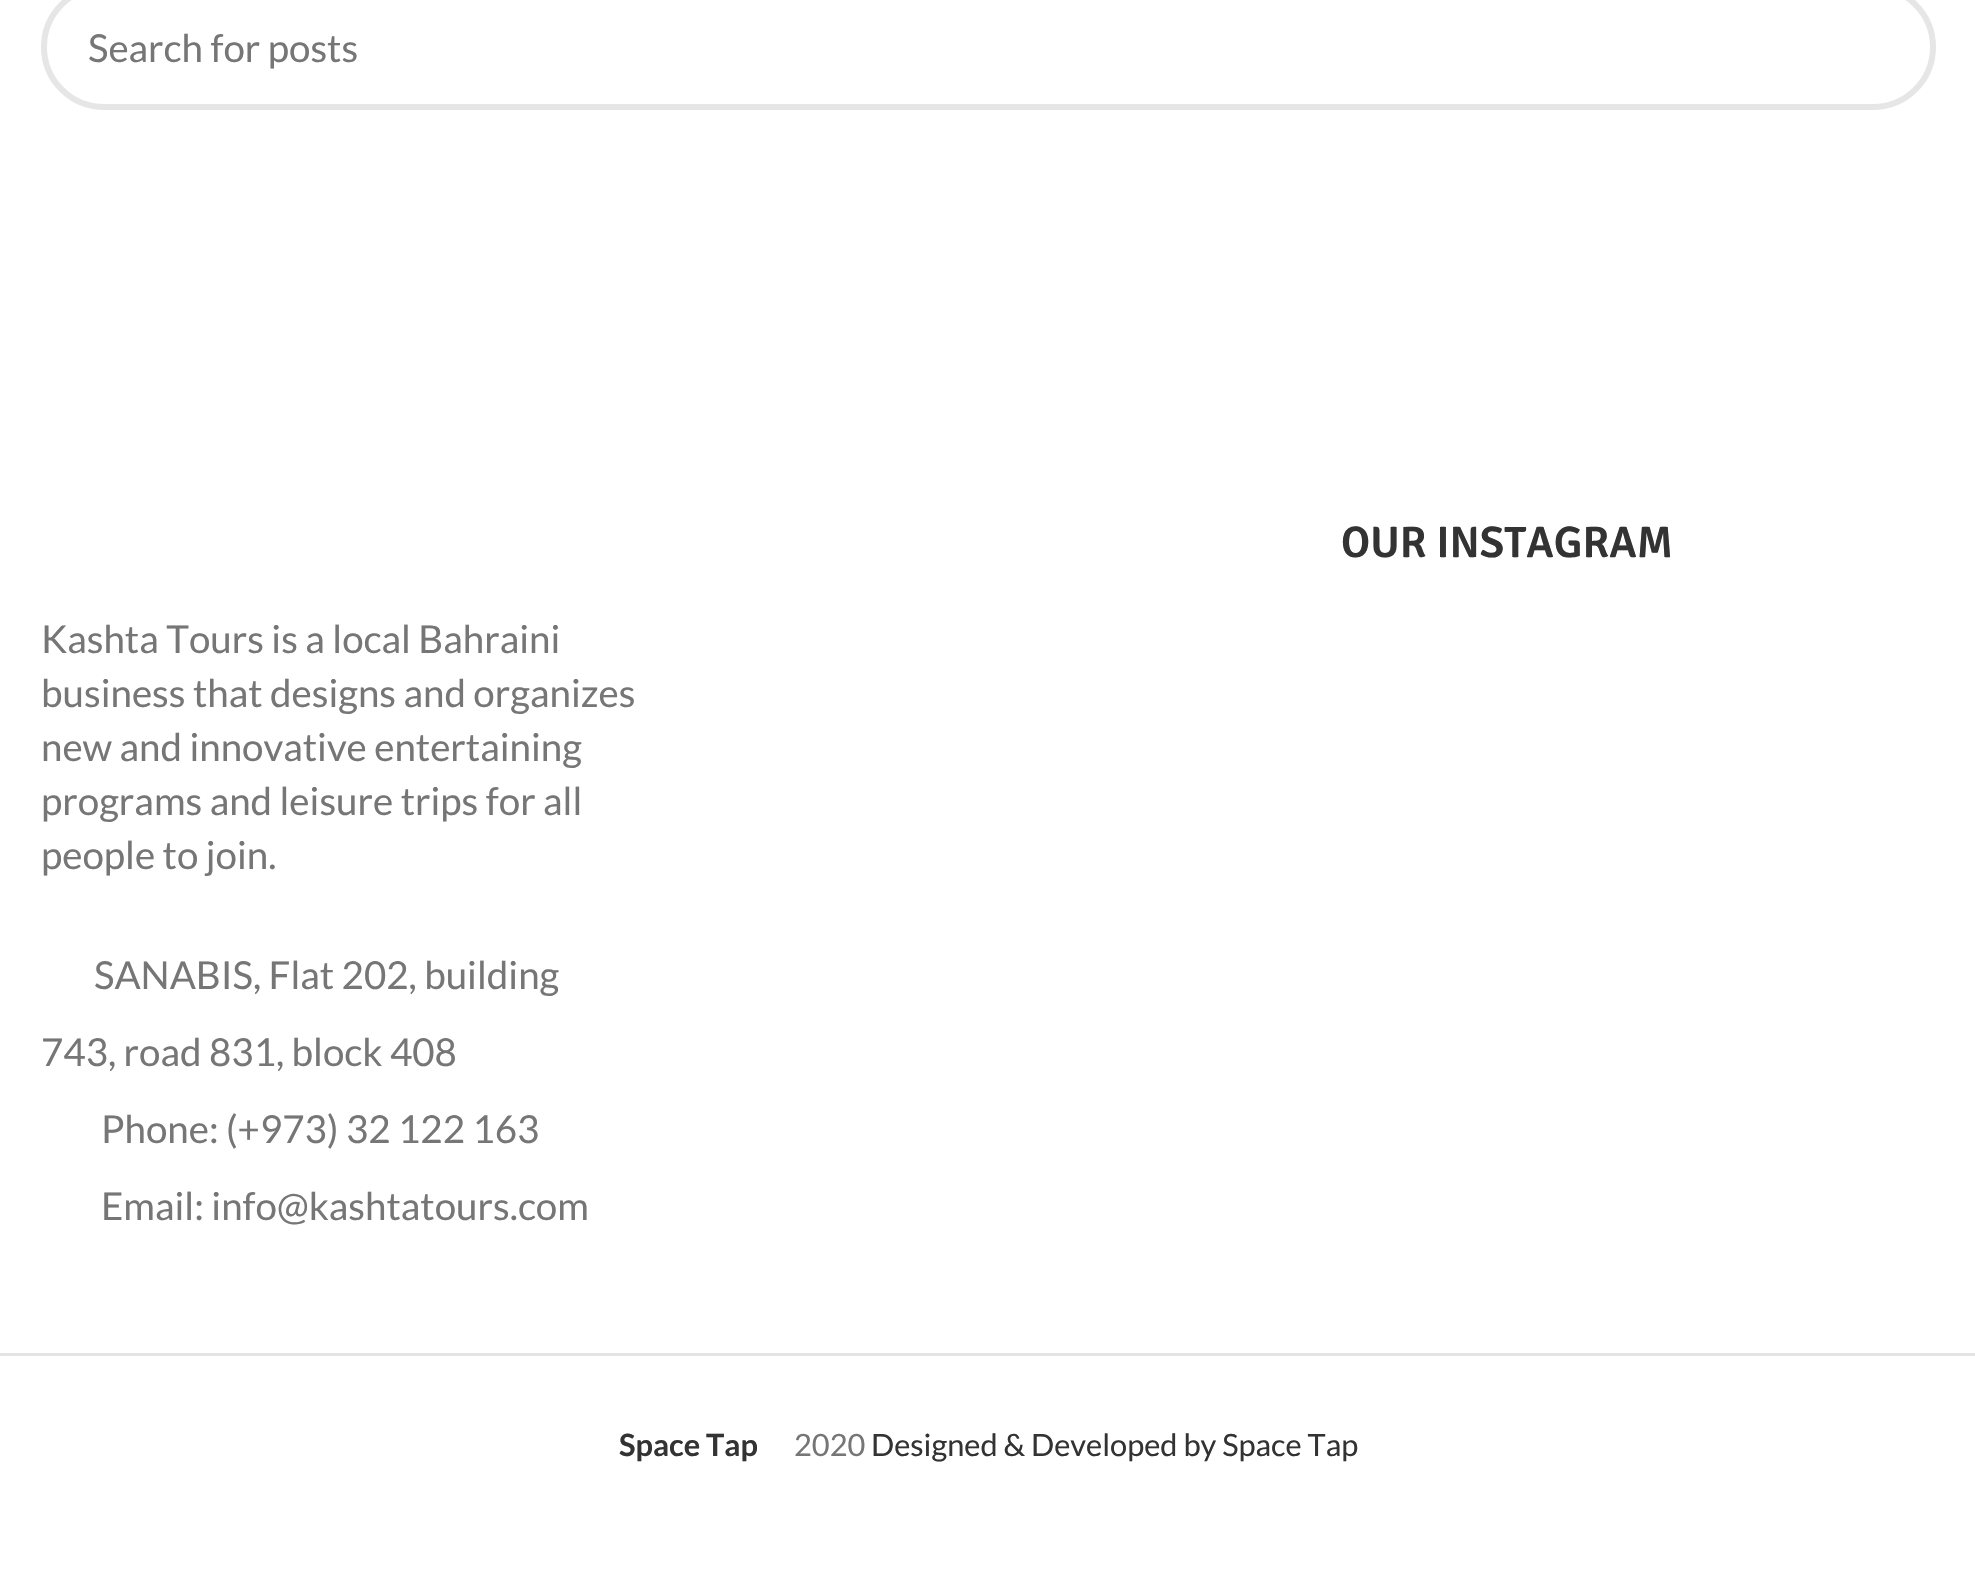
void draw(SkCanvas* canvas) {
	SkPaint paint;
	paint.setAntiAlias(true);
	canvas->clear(0xffffffff);
	paint.setStroke(true);
	paint.setStrokeWidth(6);
	paint.setColor(0xffe6e6e6);
	canvas->drawRoundRect(SkRect::MakeXYWH(44, -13, 1889, 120), 60, 60, paint);
	SkFont f1(fontMgr->matchFamilyStyle("Lato", SkFontStyle::Normal()), 38.5);
	f1.setSubpixel(true);
	paint.setStroke(false);
	paint.setColor(0xff767676);
	canvas->drawString("Search for posts", 88, 62, f1, paint);
	SkFont f2(fontMgr->matchFamilyStyle("Signika", SkFontStyle(600, SkFontStyle::kNormal_Width, SkFontStyle::kUpright_Slant)), 44);
	f2.setSubpixel(true);
	paint.setColor(0xff333333);
	canvas->drawString("OUR INSTAGRAM", 1341, 557, f2, paint);
	paint.setColor(0xff767676);
	canvas->drawString("Kashta Tours is a local Bahraini", 41, 653, f1, paint);
	canvas->drawString("business that designs and organizes", 41, 707, f1, paint);
	canvas->drawString("new and innovative entertaining", 41, 761, f1, paint);
	canvas->drawString("programs and leisure trips for all", 41, 815, f1, paint);
	canvas->drawString("people to join.", 41, 869, f1, paint);
	canvas->drawString("SANABIS, Flat 202, building", 94, 989, f1, paint);
	canvas->drawString("743, road 831, block 408", 41, 1066, f1, paint);
	canvas->drawString("Phone: (+973) 32 122 163", 101, 1143, f1, paint);
	canvas->drawString("Email: info@kashtatours.com", 101, 1220, f1, paint);
	paint.setColor(0xffe4e4e4);
	canvas->drawRect(SkRect::MakeXYWH(0, 1353, 1975, 3), paint);
	SkFont f3(fontMgr->matchFamilyStyle("Lato", SkFontStyle::Bold()), 30.75);
	f3.setSubpixel(true);
	paint.setColor(0xff333333);
	canvas->drawString("Space Tap", 619, 1456, f3, paint);
	SkFont f4(fontMgr->matchFamilyStyle("Lato", SkFontStyle::Normal()), 30.75);
	f4.setSubpixel(true);
	paint.setColor(0xff767676);
	canvas->drawString("2020", 794, 1456, f4, paint);
	paint.setColor(0xff333333);
	canvas->drawString("Designed & Developed by Space Tap", 871, 1456, f4, paint);
}
